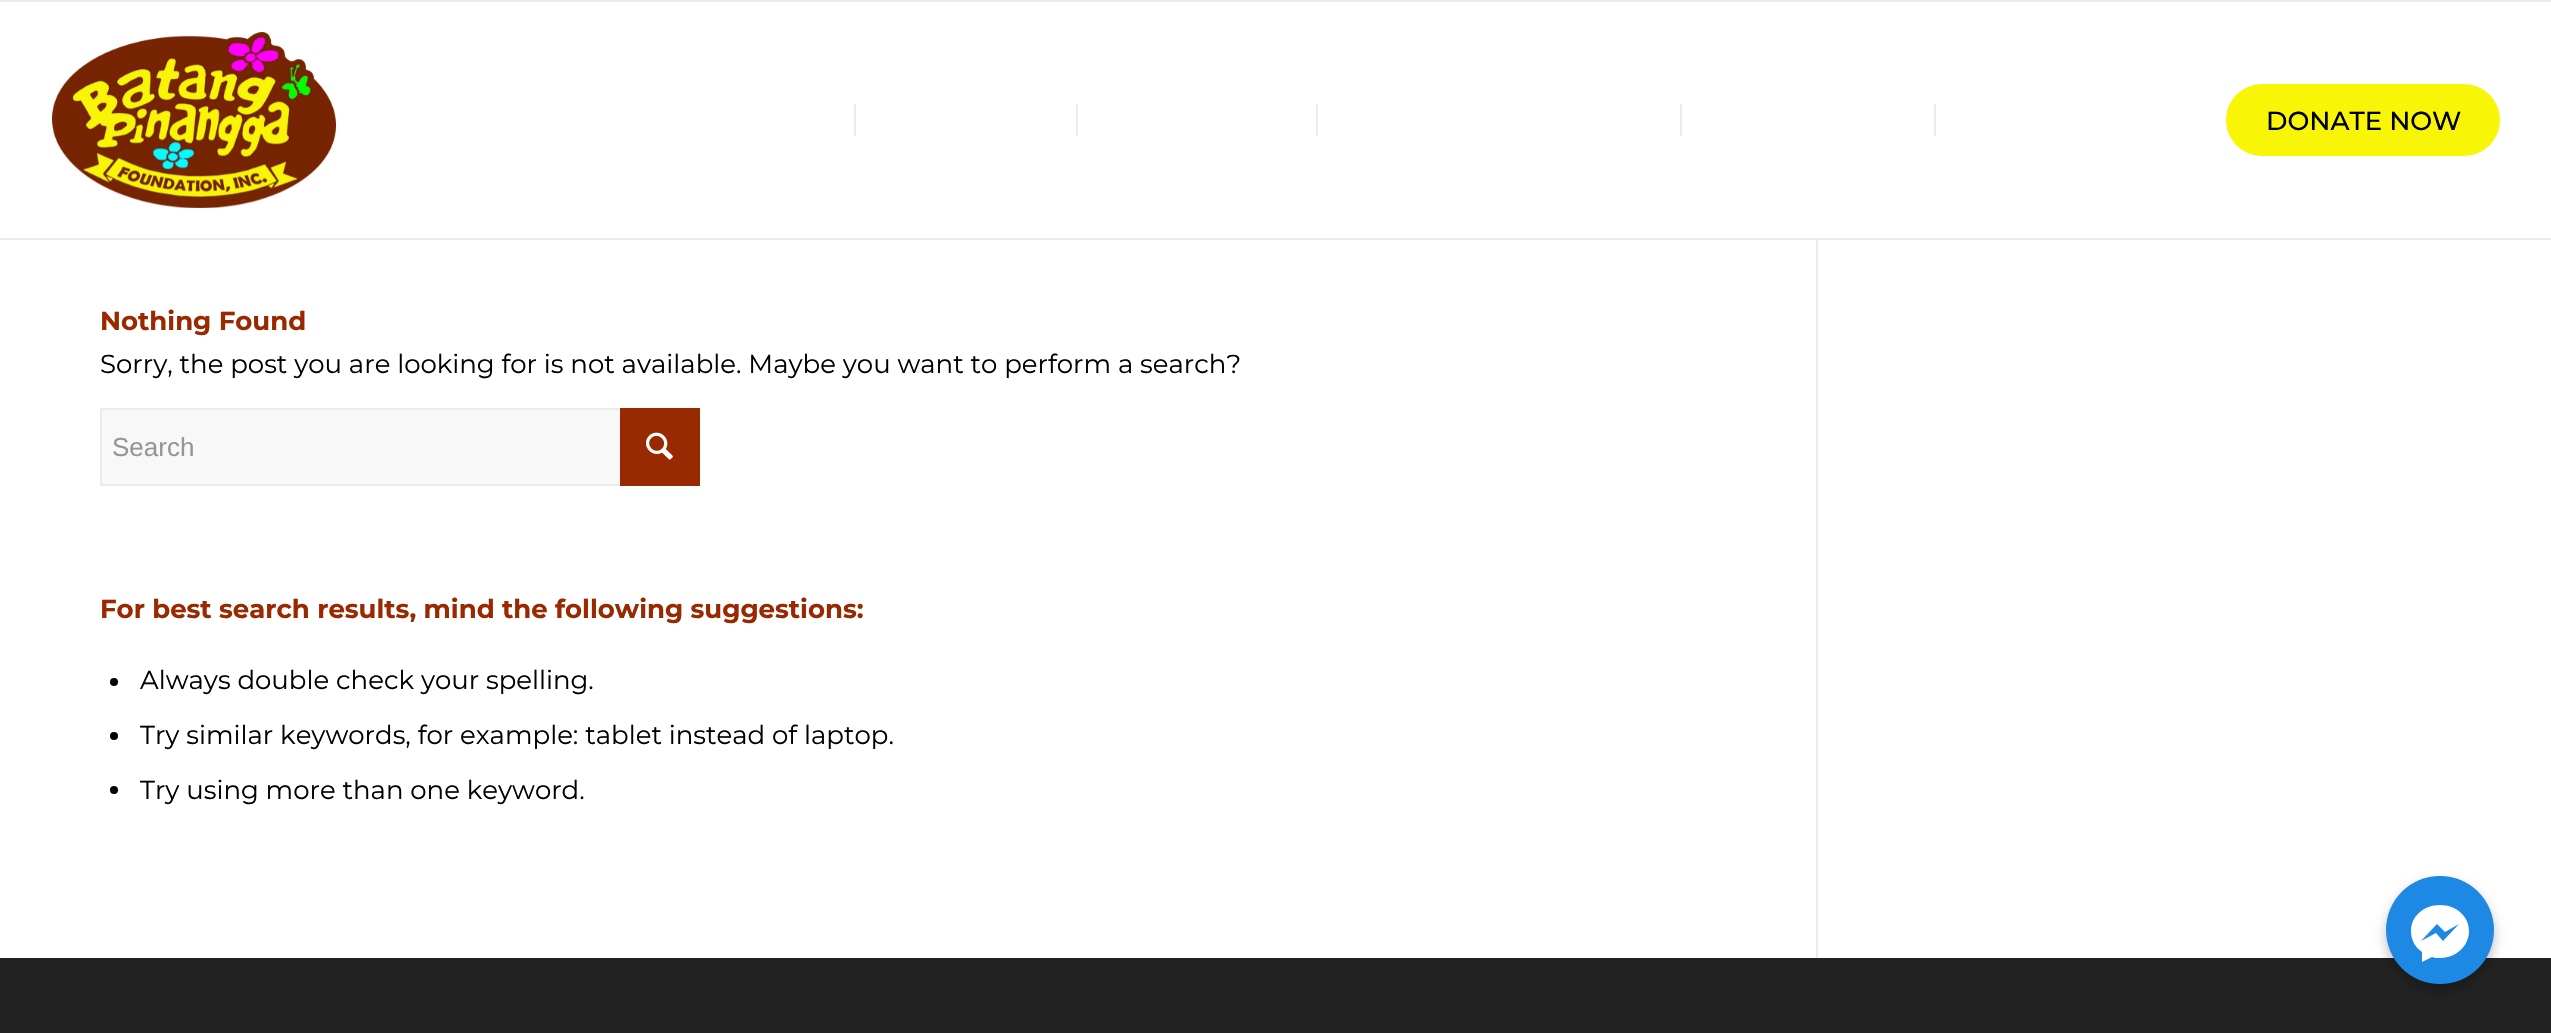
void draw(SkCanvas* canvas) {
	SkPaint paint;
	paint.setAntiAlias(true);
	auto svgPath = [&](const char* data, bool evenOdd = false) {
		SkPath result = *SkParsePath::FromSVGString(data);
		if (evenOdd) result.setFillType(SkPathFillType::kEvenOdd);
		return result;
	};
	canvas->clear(0xffffffff);
	paint.setColor(0xffebebeb);
	canvas->drawRect(SkRect::MakeXYWH(0, 0, 2551, 2), paint);
	canvas->drawRect(SkRect::MakeXYWH(0, 238, 2551, 2), paint);
	canvas->drawImageRect(SkImages::DeferredFromEncodedData(SkData::MakeFromFileName("img1.png")), SkRect::MakeXYWH(52, 32, 284, 176), SkSamplingOptions());
	canvas->drawRect(SkRect::MakeXYWH(854, 104, 2, 32), paint);
	canvas->drawRect(SkRect::MakeXYWH(1076, 104, 2, 32), paint);
	canvas->drawRect(SkRect::MakeXYWH(1316, 104, 2, 32), paint);
	canvas->drawRect(SkRect::MakeXYWH(1680, 104, 2, 32), paint);
	canvas->drawRect(SkRect::MakeXYWH(1934, 104, 2, 32), paint);
	paint.setColor(0xfff8f506);
	canvas->drawRoundRect(SkRect::MakeXYWH(2226, 84, 274, 72), 36, 36, paint);
	SkFont f1(fontMgr->matchFamilyStyle("Montserrat", SkFontStyle(500, SkFontStyle::kNormal_Width, SkFontStyle::kUpright_Slant)), 26);
	f1.setSubpixel(true);
	paint.setColor(0xff000000);
	canvas->drawString("DONATE NOW", 2266, 130, f1, paint);
	paint.setColor(0xffebebeb);
	canvas->drawRect(SkRect::MakeXYWH(1816, 240, 2, 718), paint);
	SkFont f2(fontMgr->matchFamilyStyle("Montserrat", SkFontStyle::Bold()), 26);
	f2.setSubpixel(true);
	paint.setColor(0xff992900);
	canvas->drawString("Nothing Found", 100, 330, f2, paint);
	SkFont f3(fontMgr->matchFamilyStyle("Montserrat", SkFontStyle::Normal()), 26);
	f3.setSubpixel(true);
	paint.setColor(0xff000000);
	canvas->drawString("Sorry, the post you are looking for is not available. Maybe you want to perform a search?", 100, 373, f3, paint);
	paint.setColor(0xfff8f8f8);
	canvas->drawRect(SkRect::MakeXYWH(102, 410, 518, 74), paint);
	paint.setStroke(true);
	paint.setStrokeWidth(2);
	paint.setColor(0xffebebeb);
	canvas->drawRect(SkRect::MakeXYWH(101, 409, 598, 76), paint);
	SkFont f4(fontMgr->matchFamilyStyle("Liberation Sans", SkFontStyle::Normal()), 26);
	f4.setSubpixel(true);
	paint.setStroke(false);
	paint.setColor(0xff969696);
	canvas->drawString("Search", 112, 456, f4, paint);
	paint.setColor(0xff992900);
	canvas->drawRect(SkRect::MakeXYWH(620, 408, 80, 78), paint);
	canvas->drawImageRect(SkImages::DeferredFromEncodedData(SkData::MakeFromFileName("img2.png")), SkRect::MakeXYWH(646, 432, 27, 28), SkSamplingOptions());
	canvas->drawString("For best search results, mind the following suggestions:", 100, 618, f2, paint);
	paint.setColor(0xff000000);
	canvas->drawCircle(114, 682, 4, paint);
	canvas->drawString("Always double check your spelling.", 140, 689, f3, paint);
	canvas->drawCircle(114, 736, 4, paint);
	canvas->drawString("Try similar keywords, for example: tablet instead of laptop.", 140, 744, f3, paint);
	canvas->drawCircle(114, 790, 4, paint);
	canvas->drawString("Try using more than one keyword.", 140, 799, f3, paint);
	paint.setColor(0xff222222);
	canvas->drawRect(SkRect::MakeXYWH(0, 958, 2551, 75), paint);
	paint.setColor(0x40000000);
	paint.setMaskFilter(SkMaskFilter::MakeBlur(kNormal_SkBlurStyle, 6));
	canvas->drawRoundRect(SkRect::MakeXYWH(2386, 882, 108, 108), 54, 54, paint);
	paint.setMaskFilter(nullptr);
	paint.setColor(0xff1e88e5);
	canvas->drawCircle(2440, 930, 54, paint);
	paint.setColor(0xffffffff);
	canvas->drawPath(svgPath("M2411 931C2411 916 2424 905 2440 905C2456 905 2469 916 2469 931C2469 946 2456 958 2440 958C2437 958 2434 958 2432 957L2422 962V952C2415 947 2411 940 2411 931ZM2436 933L2443 941L2459 924L2445 932L2437 924L2421 941Z", true), paint);
}
